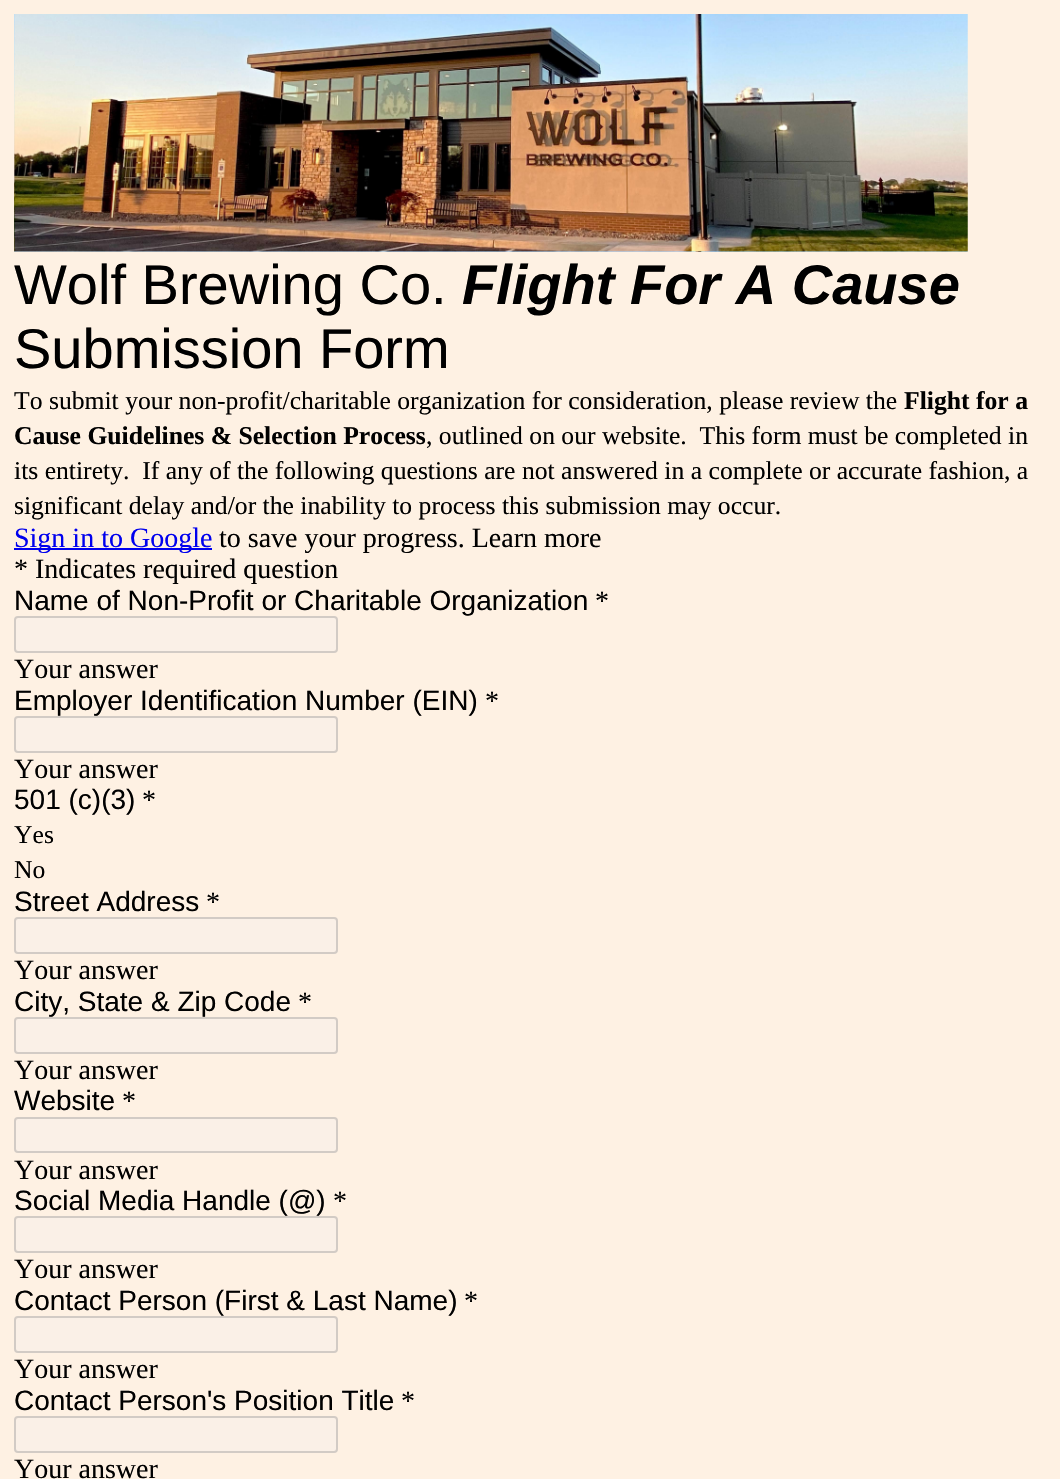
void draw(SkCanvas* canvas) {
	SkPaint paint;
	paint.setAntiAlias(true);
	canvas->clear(0xfffef1e3);
	canvas->drawImageRect(SkImages::DeferredFromEncodedData(SkData::MakeFromFileName("img1.png")), SkRect::MakeXYWH(14, 14, 954, 238), SkSamplingOptions());
	SkFont f1(fontMgr->matchFamilyStyle("Liberation Sans", SkFontStyle::Normal()), 56);
	f1.setSubpixel(true);
	paint.setColor(0xff000000);
	canvas->drawString("Wolf Brewing Co.", 14, 304, f1, paint);
	SkFont f2(fontMgr->matchFamilyStyle("Liberation Sans", SkFontStyle::BoldItalic()), 56);
	f2.setSubpixel(true);
	canvas->drawString("Flight For A Cause", 462, 304, f2, paint);
	canvas->drawString("Submission Form", 14, 368, f1, paint);
	SkFont f3(fontMgr->matchFamilyStyle("Liberation Serif", SkFontStyle::Normal()), 25.65);
	f3.setSubpixel(true);
	canvas->drawString("To submit your non-profit/charitable organization for consideration, please review the", 14, 409, f3, paint);
	SkFont f4(fontMgr->matchFamilyStyle("Liberation Serif", SkFontStyle::Bold()), 25.65);
	f4.setSubpixel(true);
	canvas->drawString("Flight for a", 904, 409, f4, paint);
	canvas->drawString("Cause Guidelines & Selection Process", 14, 444, f4, paint);
	canvas->drawString(", outlined on our website.  This form must be completed in", 426, 444, f3, paint);
	canvas->drawString("its entirety.  If any of the following questions are not answered in a complete or accurate fashion, a", 14, 479, f3, paint);
	canvas->drawString("significant delay and/or the inability to process this submission may occur.", 14, 514, f3, paint);
	paint.setColor(0xff0000ee);
	canvas->drawRect(SkRect::MakeXYWH(14, 548, 198, 2), paint);
	SkFont f5(fontMgr->matchFamilyStyle("Liberation Serif", SkFontStyle::Normal()), 28);
	f5.setSubpixel(true);
	canvas->drawString("Sign in to Google", 14, 547, f5, paint);
	paint.setColor(0xff000000);
	canvas->drawString("to save your progress. Learn more", 219, 547, f5, paint);
	canvas->drawString("* Indicates required question", 14, 578, f5, paint);
	SkFont f6(fontMgr->matchFamilyStyle("Liberation Sans", SkFontStyle::Normal()), 28);
	f6.setSubpixel(true);
	canvas->drawString("Name of Non-Profit or Charitable Organization", 14, 610, f6, paint);
	canvas->drawString("*", 595, 610, f5, paint);
	paint.setColor(0xfffaf0e7);
	canvas->drawRoundRect(SkRect::MakeXYWH(15, 617, 322, 35), 3, 3, paint);
	paint.setStroke(true);
	paint.setStrokeWidth(2);
	paint.setColor(0xffd2cbc5);
	canvas->drawRoundRect(SkRect::MakeXYWH(15, 617, 322, 35), 3, 3, paint);
	paint.setStroke(false);
	paint.setColor(0xff000000);
	canvas->drawString("Your answer", 14, 678, f5, paint);
	canvas->drawString("Employer Identification Number (EIN)", 14, 710, f6, paint);
	canvas->drawString("*", 485, 710, f5, paint);
	paint.setColor(0xfffaf0e7);
	canvas->drawRoundRect(SkRect::MakeXYWH(15, 717, 322, 35), 3, 3, paint);
	paint.setStroke(true);
	paint.setColor(0xffd2cbc5);
	canvas->drawRoundRect(SkRect::MakeXYWH(15, 717, 322, 35), 3, 3, paint);
	paint.setStroke(false);
	paint.setColor(0xff000000);
	canvas->drawString("Your answer", 14, 778, f5, paint);
	canvas->drawString("501 (c)(3)", 14, 809, f6, paint);
	canvas->drawString("*", 142, 809, f5, paint);
	canvas->drawString("Yes", 14, 843, f3, paint);
	canvas->drawString("No", 14, 878, f3, paint);
	canvas->drawString("Street Address", 14, 911, f6, paint);
	canvas->drawString("*", 206, 911, f5, paint);
	paint.setColor(0xfffaf0e7);
	canvas->drawRoundRect(SkRect::MakeXYWH(15, 918, 322, 35), 3, 3, paint);
	paint.setStroke(true);
	paint.setColor(0xffd2cbc5);
	canvas->drawRoundRect(SkRect::MakeXYWH(15, 918, 322, 35), 3, 3, paint);
	paint.setStroke(false);
	paint.setColor(0xff000000);
	canvas->drawString("Your answer", 14, 979, f5, paint);
	canvas->drawString("City, State & Zip Code", 14, 1011, f6, paint);
	canvas->drawString("*", 298, 1011, f5, paint);
	paint.setColor(0xfffaf0e7);
	canvas->drawRoundRect(SkRect::MakeXYWH(15, 1018, 322, 35), 3, 3, paint);
	paint.setStroke(true);
	paint.setColor(0xffd2cbc5);
	canvas->drawRoundRect(SkRect::MakeXYWH(15, 1018, 322, 35), 3, 3, paint);
	paint.setStroke(false);
	paint.setColor(0xff000000);
	canvas->drawString("Your answer", 14, 1079, f5, paint);
	canvas->drawString("Website", 14, 1110, f6, paint);
	canvas->drawString("*", 122, 1110, f5, paint);
	paint.setColor(0xfffaf0e7);
	canvas->drawRoundRect(SkRect::MakeXYWH(15, 1118, 322, 34), 3, 3, paint);
	paint.setStroke(true);
	paint.setColor(0xffd2cbc5);
	canvas->drawRoundRect(SkRect::MakeXYWH(15, 1118, 322, 34), 3, 3, paint);
	paint.setStroke(false);
	paint.setColor(0xff000000);
	canvas->drawString("Your answer", 14, 1179, f5, paint);
	canvas->drawString("Social Media Handle (@)", 14, 1210, f6, paint);
	canvas->drawString("*", 333, 1210, f5, paint);
	paint.setColor(0xfffaf0e7);
	canvas->drawRoundRect(SkRect::MakeXYWH(15, 1217, 322, 35), 3, 3, paint);
	paint.setStroke(true);
	paint.setColor(0xffd2cbc5);
	canvas->drawRoundRect(SkRect::MakeXYWH(15, 1217, 322, 35), 3, 3, paint);
	paint.setStroke(false);
	paint.setColor(0xff000000);
	canvas->drawString("Your answer", 14, 1278, f5, paint);
	canvas->drawString("Contact Person (First & Last Name)", 14, 1310, f6, paint);
	canvas->drawString("*", 464, 1310, f5, paint);
	paint.setColor(0xfffaf0e7);
	canvas->drawRoundRect(SkRect::MakeXYWH(15, 1317, 322, 35), 3, 3, paint);
	paint.setStroke(true);
	paint.setColor(0xffd2cbc5);
	canvas->drawRoundRect(SkRect::MakeXYWH(15, 1317, 322, 35), 3, 3, paint);
	paint.setStroke(false);
	paint.setColor(0xff000000);
	canvas->drawString("Your answer", 14, 1378, f5, paint);
	canvas->drawString("Contact Person's Position Title", 14, 1410, f6, paint);
	canvas->drawString("*", 401, 1410, f5, paint);
	paint.setColor(0xfffaf0e7);
	canvas->drawRoundRect(SkRect::MakeXYWH(15, 1417, 322, 35), 3, 3, paint);
	paint.setStroke(true);
	paint.setColor(0xffd2cbc5);
	canvas->drawRoundRect(SkRect::MakeXYWH(15, 1417, 322, 35), 3, 3, paint);
	paint.setStroke(false);
	paint.setColor(0xff000000);
	canvas->drawString("Your answer", 14, 1478, f5, paint);
}
